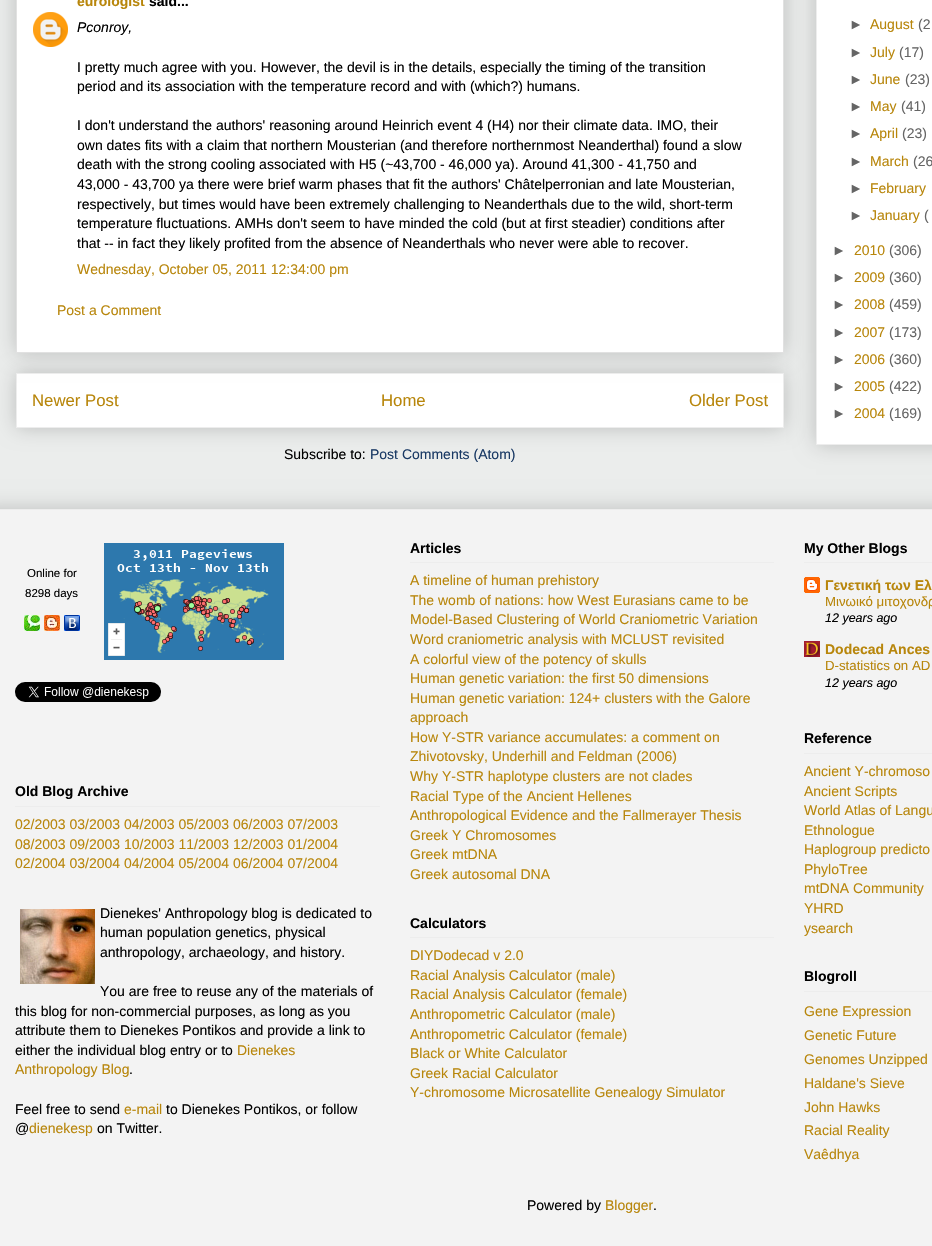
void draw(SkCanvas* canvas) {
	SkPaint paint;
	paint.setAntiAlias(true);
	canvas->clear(0xffebedec);
	paint.setColor(0x33000000);
	paint.setMaskFilter(SkMaskFilter::MakeBlur(kNormal_SkBlurStyle, 10));
	canvas->drawRect(SkRect::MakeXYWH(16, 373, 768, 55), paint);
	paint.setMaskFilter(nullptr);
	paint.setColor(0xffffffff);
	canvas->drawRect(SkRect::MakeXYWH(16.5, 373.5, 767, 54), paint);
	paint.setStroke(true);
	paint.setStrokeWidth(1);
	paint.setColor(0xffededed);
	canvas->drawRect(SkRect::MakeXYWH(16.5, 373.5, 767, 54), paint);
	paint.setStroke(false);
	paint.setColor(0x33000000);
	paint.setMaskFilter(SkMaskFilter::MakeBlur(kNormal_SkBlurStyle, 10));
	canvas->drawRect(SkRect::MakeXYWH(16, -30, 768, 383), paint);
	paint.setMaskFilter(nullptr);
	paint.setColor(0xffffffff);
	canvas->drawRect(SkRect::MakeXYWH(16.5, -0.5, 767, 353), paint);
	paint.setStroke(true);
	paint.setColor(0xffe1e1e1);
	canvas->drawRect(SkRect::MakeXYWH(16.5, -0.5, 767, 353), paint);
	SkFont f1(fontMgr->matchFamilyStyle("Liberation Sans", SkFontStyle::Bold()), 14);
	f1.setSubpixel(true);
	paint.setStroke(false);
	paint.setColor(0xffb8860b);
	canvas->drawString("eurologist", 77, 6, f1, paint);
	paint.setColor(0xff000000);
	canvas->drawString("said...", 149, 6, f1, paint);
	canvas->drawImageRect(SkImages::DeferredFromEncodedData(SkData::MakeFromFileName("img1.png")), SkRect::MakeXYWH(33, 12, 35, 35), SkSamplingOptions());
	SkFont f2(fontMgr->matchFamilyStyle("Liberation Sans", SkFontStyle::Italic()), 14);
	f2.setSubpixel(true);
	canvas->drawString("Pconroy,", 77, 32, f2, paint);
	SkFont f3(fontMgr->matchFamilyStyle("Liberation Sans", SkFontStyle::Normal()), 14);
	f3.setSubpixel(true);
	canvas->drawString("I pretty much agree with you. However, the devil is in the details, especially the timing of the transition", 77, 72, f3, paint);
	canvas->drawString("period and its association with the temperature record and with (which?) humans.", 77, 91, f3, paint);
	canvas->drawString("I don't understand the authors' reasoning around Heinrich event 4 (H4) nor their climate data. IMO, their", 77, 130, f3, paint);
	canvas->drawString("own dates fits with a claim that northern Mousterian (and therefore northernmost Neanderthal) found a slow", 77, 150, f3, paint);
	canvas->drawString("death with the strong cooling associated with H5 (~43,700 - 46,000 ya). Around 41,300 - 41,750 and", 77, 169, f3, paint);
	canvas->drawString("43,000 - 43,700 ya there were brief warm phases that fit the authors' Châtelperronian and late Mousterian,", 77, 189, f3, paint);
	canvas->drawString("respectively, but times would have been extremely challenging to Neanderthals due to the wild, short-term", 77, 209, f3, paint);
	canvas->drawString("temperature fluctuations. AMHs don't seem to have minded the cold (but at first steadier) conditions after", 77, 228, f3, paint);
	canvas->drawString("that -- in fact they likely profited from the absence of Neanderthals who never were able to recover.", 77, 248, f3, paint);
	paint.setColor(0xffb8860b);
	canvas->drawString("Wednesday, October 05, 2011 12:34:00 pm", 77, 274, f3, paint);
	canvas->drawString("Post a Comment", 57, 315, f3, paint);
	SkFont f4(fontMgr->matchFamilyStyle("Liberation Sans", SkFontStyle::Normal()), 16.75);
	f4.setSubpixel(true);
	canvas->drawString("Newer Post", 32, 406, f4, paint);
	canvas->drawString("Home", 381, 406, f4, paint);
	canvas->drawString("Older Post", 689, 406, f4, paint);
	paint.setColor(0xff000000);
	canvas->drawString("Subscribe to:", 284, 459, f3, paint);
	paint.setColor(0xff193964);
	canvas->drawString("Post Comments (Atom)", 370, 459, f3, paint);
	paint.setColor(0x33000000);
	paint.setMaskFilter(SkMaskFilter::MakeBlur(kNormal_SkBlurStyle, 10));
	canvas->drawRect(SkRect::MakeXYWH(816, -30, 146, 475), paint);
	paint.setMaskFilter(nullptr);
	paint.setColor(0xffffffff);
	canvas->drawRect(SkRect::MakeXYWH(816.5, -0.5, 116, 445), paint);
	paint.setStroke(true);
	paint.setColor(0xffededed);
	canvas->drawRect(SkRect::MakeXYWH(816.5, -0.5, 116, 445), paint);
	paint.setStroke(false);
	paint.setColor(0xff656565);
	canvas->drawString("►", 849, 29, f3, paint);
	paint.setColor(0xffb8860b);
	canvas->drawString("August", 870, 29, f3, paint);
	paint.setColor(0xff656565);
	canvas->drawString("(2", 918, 29, f3, paint);
	canvas->drawString("►", 849, 57, f3, paint);
	paint.setColor(0xffb8860b);
	canvas->drawString("July", 870, 57, f3, paint);
	paint.setColor(0xff656565);
	canvas->drawString("(17)", 899, 57, f3, paint);
	canvas->drawString("►", 849, 84, f3, paint);
	paint.setColor(0xffb8860b);
	canvas->drawString("June", 870, 84, f3, paint);
	paint.setColor(0xff656565);
	canvas->drawString("(23)", 905, 84, f3, paint);
	canvas->drawString("►", 849, 111, f3, paint);
	paint.setColor(0xffb8860b);
	canvas->drawString("May", 870, 111, f3, paint);
	paint.setColor(0xff656565);
	canvas->drawString("(41)", 901, 111, f3, paint);
	canvas->drawString("►", 849, 138, f3, paint);
	paint.setColor(0xffb8860b);
	canvas->drawString("April", 870, 138, f3, paint);
	paint.setColor(0xff656565);
	canvas->drawString("(23)", 902, 138, f3, paint);
	canvas->drawString("►", 849, 166, f3, paint);
	paint.setColor(0xffb8860b);
	canvas->drawString("March", 870, 166, f3, paint);
	paint.setColor(0xff656565);
	canvas->drawString("(26", 913, 166, f3, paint);
	canvas->drawString("►", 849, 193, f3, paint);
	paint.setColor(0xffb8860b);
	canvas->drawString("February", 870, 193, f3, paint);
	paint.setColor(0xff656565);
	canvas->drawString("►", 849, 220, f3, paint);
	paint.setColor(0xffb8860b);
	canvas->drawString("January", 870, 220, f3, paint);
	paint.setColor(0xff656565);
	canvas->drawString("(", 924, 220, f3, paint);
	canvas->drawString("►", 832, 255, f3, paint);
	paint.setColor(0xffb8860b);
	canvas->drawString("2010", 854, 255, f3, paint);
	paint.setColor(0xff656565);
	canvas->drawString("(306)", 889, 255, f3, paint);
	canvas->drawString("►", 832, 282, f3, paint);
	paint.setColor(0xffb8860b);
	canvas->drawString("2009", 854, 282, f3, paint);
	paint.setColor(0xff656565);
	canvas->drawString("(360)", 889, 282, f3, paint);
	canvas->drawString("►", 832, 309, f3, paint);
	paint.setColor(0xffb8860b);
	canvas->drawString("2008", 854, 309, f3, paint);
	paint.setColor(0xff656565);
	canvas->drawString("(459)", 889, 309, f3, paint);
	canvas->drawString("►", 832, 337, f3, paint);
	paint.setColor(0xffb8860b);
	canvas->drawString("2007", 854, 337, f3, paint);
	paint.setColor(0xff656565);
	canvas->drawString("(173)", 889, 337, f3, paint);
	canvas->drawString("►", 832, 364, f3, paint);
	paint.setColor(0xffb8860b);
	canvas->drawString("2006", 854, 364, f3, paint);
	paint.setColor(0xff656565);
	canvas->drawString("(360)", 889, 364, f3, paint);
	canvas->drawString("►", 832, 391, f3, paint);
	paint.setColor(0xffb8860b);
	canvas->drawString("2005", 854, 391, f3, paint);
	paint.setColor(0xff656565);
	canvas->drawString("(422)", 889, 391, f3, paint);
	canvas->drawString("►", 832, 418, f3, paint);
	paint.setColor(0xffb8860b);
	canvas->drawString("2004", 854, 418, f3, paint);
	paint.setColor(0xff656565);
	canvas->drawString("(169)", 889, 418, f3, paint);
	paint.setColor(0x33000000);
	paint.setMaskFilter(SkMaskFilter::MakeBlur(kNormal_SkBlurStyle, 10));
	canvas->drawRect(SkRect::MakeXYWH(-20, 509, 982, 737), paint);
	paint.setMaskFilter(nullptr);
	paint.setColor(0xfff3f3f3);
	canvas->drawRect(SkRect::MakeXYWH(0, 510, 932, 736), paint);
	paint.setColor(0xffededed);
	canvas->drawRect(SkRect::MakeXYWH(0, 509, 932, 1), paint);
	SkFont f5(fontMgr->matchFamilyStyle("Liberation Sans", SkFontStyle::Normal()), 11.5);
	f5.setSubpixel(true);
	paint.setColor(0xff000000);
	canvas->drawString("Online for", 27, 577, f5, paint);
	canvas->drawString("8298 days", 25, 597, f5, paint);
	canvas->drawImageRect(SkImages::DeferredFromEncodedData(SkData::MakeFromFileName("img2.png")), SkRect::MakeXYWH(24, 615, 16, 16), SkSamplingOptions());
	canvas->drawImageRect(SkImages::DeferredFromEncodedData(SkData::MakeFromFileName("img3.png")), SkRect::MakeXYWH(44, 615, 16, 16), SkSamplingOptions());
	canvas->drawImageRect(SkImages::DeferredFromEncodedData(SkData::MakeFromFileName("img4.png")), SkRect::MakeXYWH(64, 615, 16, 16), SkSamplingOptions());
	canvas->drawImageRect(SkImages::DeferredFromEncodedData(SkData::MakeFromFileName("img5.png")), SkRect::MakeXYWH(104, 543, 180, 117), SkSamplingOptions());
	canvas->drawImageRect(SkImages::DeferredFromEncodedData(SkData::MakeFromFileName("img6.png")), SkRect::MakeXYWH(15, 682, 146, 20), SkSamplingOptions());
	canvas->drawString("Old Blog Archive", 15, 796, f1, paint);
	paint.setColor(0xffededed);
	canvas->drawRect(SkRect::MakeXYWH(15, 806, 365, 1), paint);
	paint.setColor(0xffb8860b);
	canvas->drawString("02/2003 03/2003 04/2003 05/2003 06/2003 07/2003", 15, 829, f3, paint);
	canvas->drawString("08/2003 09/2003 10/2003 11/2003 12/2003 01/2004", 15, 849, f3, paint);
	canvas->drawString("02/2004 03/2004 04/2004 05/2004 06/2004 07/2004", 15, 868, f3, paint);
	canvas->drawImageRect(SkImages::DeferredFromEncodedData(SkData::MakeFromFileName("img7.png")), SkRect::MakeXYWH(20, 909, 75, 75), SkSamplingOptions());
	paint.setColor(0xff000000);
	canvas->drawString("Dienekes' Anthropology blog is dedicated to", 100, 918, f3, paint);
	canvas->drawString("human population genetics, physical", 100, 937, f3, paint);
	canvas->drawString("anthropology, archaeology, and history.", 100, 957, f3, paint);
	canvas->drawString("You are free to reuse any of the materials of", 100, 996, f3, paint);
	canvas->drawString("this blog for non-commercial purposes, as long as you", 15, 1016, f3, paint);
	canvas->drawString("attribute them to Dienekes Pontikos and provide a link to", 15, 1035, f3, paint);
	canvas->drawString("either the individual blog entry or to", 15, 1055, f3, paint);
	paint.setColor(0xffb8860b);
	canvas->drawString("Dienekes", 237, 1055, f3, paint);
	canvas->drawString("Anthropology Blog", 15, 1074, f3, paint);
	paint.setColor(0xff000000);
	canvas->drawString(".", 129, 1074, f3, paint);
	canvas->drawString("Feel free to send", 15, 1114, f3, paint);
	paint.setColor(0xffb8860b);
	canvas->drawString("e-mail", 124, 1114, f3, paint);
	paint.setColor(0xff000000);
	canvas->drawString("to Dienekes Pontikos, or follow", 166, 1114, f3, paint);
	canvas->drawString("@", 15, 1133, f3, paint);
	paint.setColor(0xffb8860b);
	canvas->drawString("dienekesp", 29, 1133, f3, paint);
	paint.setColor(0xff000000);
	canvas->drawString("on Twitter.", 97, 1133, f3, paint);
	canvas->drawString("Articles", 410, 553, f1, paint);
	paint.setColor(0xffededed);
	canvas->drawRect(SkRect::MakeXYWH(410, 562, 364, 1), paint);
	paint.setColor(0xffb8860b);
	canvas->drawString("A timeline of human prehistory", 410, 585, f3, paint);
	canvas->drawString("The womb of nations: how West Eurasians came to be", 410, 605, f3, paint);
	canvas->drawString("Model-Based Clustering of World Craniometric Variation", 410, 624, f3, paint);
	canvas->drawString("Word craniometric analysis with MCLUST revisited", 410, 644, f3, paint);
	canvas->drawString("A colorful view of the potency of skulls", 410, 664, f3, paint);
	canvas->drawString("Human genetic variation: the first 50 dimensions", 410, 683, f3, paint);
	canvas->drawString("Human genetic variation: 124+ clusters with the Galore", 410, 703, f3, paint);
	canvas->drawString("approach", 410, 722, f3, paint);
	canvas->drawString("How Y-STR variance accumulates: a comment on", 410, 742, f3, paint);
	canvas->drawString("Zhivotovsky, Underhill and Feldman (2006)", 410, 761, f3, paint);
	canvas->drawString("Why Y-STR haplotype clusters are not clades", 410, 781, f3, paint);
	canvas->drawString("Racial Type of the Ancient Hellenes", 410, 801, f3, paint);
	canvas->drawString("Anthropological Evidence and the Fallmerayer Thesis", 410, 820, f3, paint);
	canvas->drawString("Greek Y Chromosomes", 410, 840, f3, paint);
	canvas->drawString("Greek mtDNA", 410, 859, f3, paint);
	canvas->drawString("Greek autosomal DNA", 410, 879, f3, paint);
	paint.setColor(0xff000000);
	canvas->drawString("Calculators", 410, 928, f1, paint);
	paint.setColor(0xffededed);
	canvas->drawRect(SkRect::MakeXYWH(410, 937, 364, 1), paint);
	paint.setColor(0xffb8860b);
	canvas->drawString("DIYDodecad v 2.0", 410, 960, f3, paint);
	canvas->drawString("Racial Analysis Calculator (male)", 410, 980, f3, paint);
	canvas->drawString("Racial Analysis Calculator (female)", 410, 999, f3, paint);
	canvas->drawString("Anthropometric Calculator (male)", 410, 1019, f3, paint);
	canvas->drawString("Anthropometric Calculator (female)", 410, 1039, f3, paint);
	canvas->drawString("Black or White Calculator", 410, 1058, f3, paint);
	canvas->drawString("Greek Racial Calculator", 410, 1078, f3, paint);
	canvas->drawString("Y-chromosome Microsatellite Genealogy Simulator", 410, 1097, f3, paint);
	paint.setColor(0xff000000);
	canvas->drawString("My Other Blogs", 804, 553, f1, paint);
	paint.setColor(0xffededed);
	canvas->drawRect(SkRect::MakeXYWH(804, 562, 128, 1), paint);
	canvas->drawImageRect(SkImages::DeferredFromEncodedData(SkData::MakeFromFileName("img8.png")), SkRect::MakeXYWH(804, 577, 16, 16), SkSamplingOptions());
	paint.setColor(0xffb8860b);
	canvas->drawString("Γενετική των Ελ", 825, 590, f1, paint);
	SkFont f6(fontMgr->matchFamilyStyle("Liberation Sans", SkFontStyle::Normal()), 13.25);
	f6.setSubpixel(true);
	canvas->drawString("Μινωικό μιτοχονδρ", 825, 606, f6, paint);
	SkFont f7(fontMgr->matchFamilyStyle("Liberation Sans", SkFontStyle::Italic()), 12.5);
	f7.setSubpixel(true);
	paint.setColor(0xff000000);
	canvas->drawString("12 years ago", 825, 622, f7, paint);
	canvas->drawImageRect(SkImages::DeferredFromEncodedData(SkData::MakeFromFileName("img9.png")), SkRect::MakeXYWH(804, 641, 16, 16), SkSamplingOptions());
	paint.setColor(0xffb8860b);
	canvas->drawString("Dodecad Ances", 825, 654, f1, paint);
	canvas->drawString("D-statistics on AD", 825, 670, f6, paint);
	paint.setColor(0xff000000);
	canvas->drawString("12 years ago", 825, 687, f7, paint);
	canvas->drawString("Reference", 804, 743, f1, paint);
	paint.setColor(0xffededed);
	canvas->drawRect(SkRect::MakeXYWH(804, 753, 128, 1), paint);
	paint.setColor(0xffb8860b);
	canvas->drawString("Ancient Y-chromoso", 804, 776, f3, paint);
	canvas->drawString("Ancient Scripts", 804, 796, f3, paint);
	canvas->drawString("World Atlas of Langu", 804, 815, f3, paint);
	canvas->drawString("Ethnologue", 804, 835, f3, paint);
	canvas->drawString("Haplogroup predicto", 804, 854, f3, paint);
	canvas->drawString("PhyloTree", 804, 874, f3, paint);
	canvas->drawString("mtDNA Community", 804, 893, f3, paint);
	canvas->drawString("YHRD", 804, 913, f3, paint);
	canvas->drawString("ysearch", 804, 933, f3, paint);
	paint.setColor(0xff000000);
	canvas->drawString("Blogroll", 804, 981, f1, paint);
	paint.setColor(0xffededed);
	canvas->drawRect(SkRect::MakeXYWH(804, 991, 128, 1), paint);
	paint.setColor(0xffb8860b);
	canvas->drawString("Gene Expression", 804, 1016, f3, paint);
	canvas->drawString("Genetic Future", 804, 1040, f3, paint);
	canvas->drawString("Genomes Unzipped", 804, 1064, f3, paint);
	canvas->drawString("Haldane's Sieve", 804, 1088, f3, paint);
	canvas->drawString("John Hawks", 804, 1112, f3, paint);
	canvas->drawString("Racial Reality", 804, 1135, f3, paint);
	canvas->drawString("Vaêdhya", 804, 1159, f3, paint);
	paint.setColor(0xff000000);
	canvas->drawString("Powered by", 527, 1210, f3, paint);
	paint.setColor(0xffb8860b);
	canvas->drawString("Blogger", 605, 1210, f3, paint);
	paint.setColor(0xff000000);
	canvas->drawString(".", 653, 1210, f3, paint);
}
